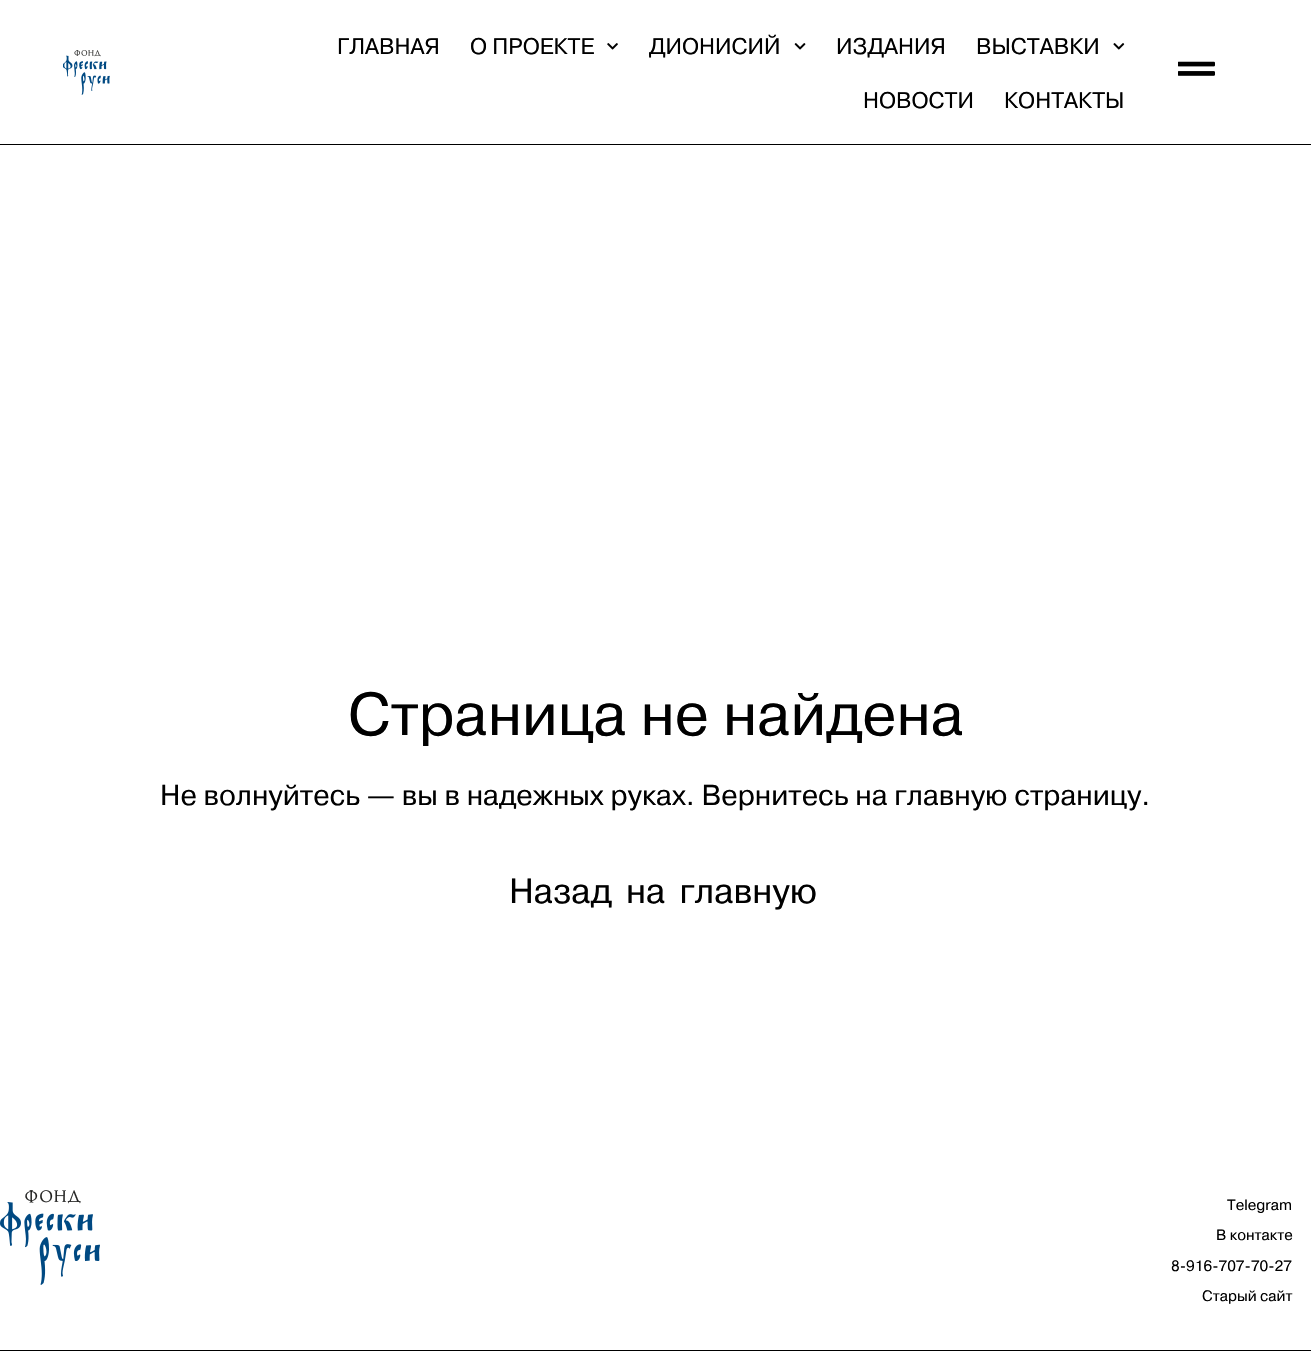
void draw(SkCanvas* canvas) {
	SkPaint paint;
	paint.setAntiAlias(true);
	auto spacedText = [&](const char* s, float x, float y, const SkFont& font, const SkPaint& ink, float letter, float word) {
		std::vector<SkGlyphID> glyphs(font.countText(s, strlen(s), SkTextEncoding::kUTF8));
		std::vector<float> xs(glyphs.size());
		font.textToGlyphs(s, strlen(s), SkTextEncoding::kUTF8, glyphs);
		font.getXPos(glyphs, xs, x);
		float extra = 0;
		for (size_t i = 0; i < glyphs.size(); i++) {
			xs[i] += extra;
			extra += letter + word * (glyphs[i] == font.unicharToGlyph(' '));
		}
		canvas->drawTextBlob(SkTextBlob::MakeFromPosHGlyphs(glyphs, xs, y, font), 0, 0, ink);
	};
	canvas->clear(0xffffffff);
	paint.setColor(0xff000000);
	canvas->drawRect(SkRect::MakeXYWH(0, 144, 1311, 1), paint);
	canvas->drawImageRect(SkImages::DeferredFromEncodedData(SkData::MakeFromFileName("img1.png")), SkRect::MakeXYWH(63, 50, 47, 45), SkSamplingOptions());
	SkFont f1(fontMgr->matchFamilyStyle("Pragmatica", SkFontStyle::Normal()), 22.5);
	f1.setSubpixel(true);
	canvas->drawString("ГЛАВНАЯ", 337, 54, f1, paint);
	canvas->drawString("О ПРОЕКТЕ", 470, 54, f1, paint);
	canvas->drawImageRect(SkImages::DeferredFromEncodedData(SkData::MakeFromFileName("img2.png")), SkRect::MakeXYWH(607, 43, 11, 7), SkSamplingOptions());
	canvas->drawString("ДИОНИСИЙ", 649, 54, f1, paint);
	canvas->drawImageRect(SkImages::DeferredFromEncodedData(SkData::MakeFromFileName("img3.png")), SkRect::MakeXYWH(794, 43, 12, 7), SkSamplingOptions());
	canvas->drawString("ИЗДАНИЯ", 836, 54, f1, paint);
	canvas->drawString("ВЫСТАВКИ", 976, 54, f1, paint);
	canvas->drawImageRect(SkImages::DeferredFromEncodedData(SkData::MakeFromFileName("img4.png")), SkRect::MakeXYWH(1113, 43, 12, 7), SkSamplingOptions());
	canvas->drawString("НОВОСТИ", 863, 108, f1, paint);
	canvas->drawString("КОНТАКТЫ", 1004, 108, f1, paint);
	canvas->drawImageRect(SkImages::DeferredFromEncodedData(SkData::MakeFromFileName("img5.png")), SkRect::MakeXYWH(1178, 61, 37, 15), SkSamplingOptions());
	SkFont f2(fontMgr->matchFamilyStyle("Pragmatica", SkFontStyle::Normal()), 60);
	f2.setSubpixel(true);
	canvas->drawString("Страница не найдена", 348, 735, f2, paint);
	SkFont f3(fontMgr->matchFamilyStyle("Pragmatica", SkFontStyle::Normal()), 28.75);
	f3.setSubpixel(true);
	canvas->drawString("Не волнуйтесь — вы в надежных руках. Вернитесь на главную страницу.", 160, 805, f3, paint);
	SkFont f4(fontMgr->matchFamilyStyle("Pragmatica", SkFontStyle::Normal()), 35);
	f4.setSubpixel(true);
	spacedText("Назад на главную", 509, 903, f4, paint, 0, 6);
	canvas->drawImageRect(SkImages::DeferredFromEncodedData(SkData::MakeFromFileName("img6.png")), SkRect::MakeXYWH(0, 1190, 100, 95), SkSamplingOptions());
	SkFont f5(fontMgr->matchFamilyStyle("Pragmatica", SkFontStyle::Normal()), 15);
	f5.setSubpixel(true);
	canvas->drawString("Telegram", 1227, 1210, f5, paint);
	canvas->drawString("В контакте", 1216, 1240, f5, paint);
	canvas->drawString("8-916-707-70-27", 1171, 1271, f5, paint);
	canvas->drawString("Старый сайт", 1202, 1301, f5, paint);
	canvas->drawRect(SkRect::MakeXYWH(0, 1350, 1311, 1), paint);
}
